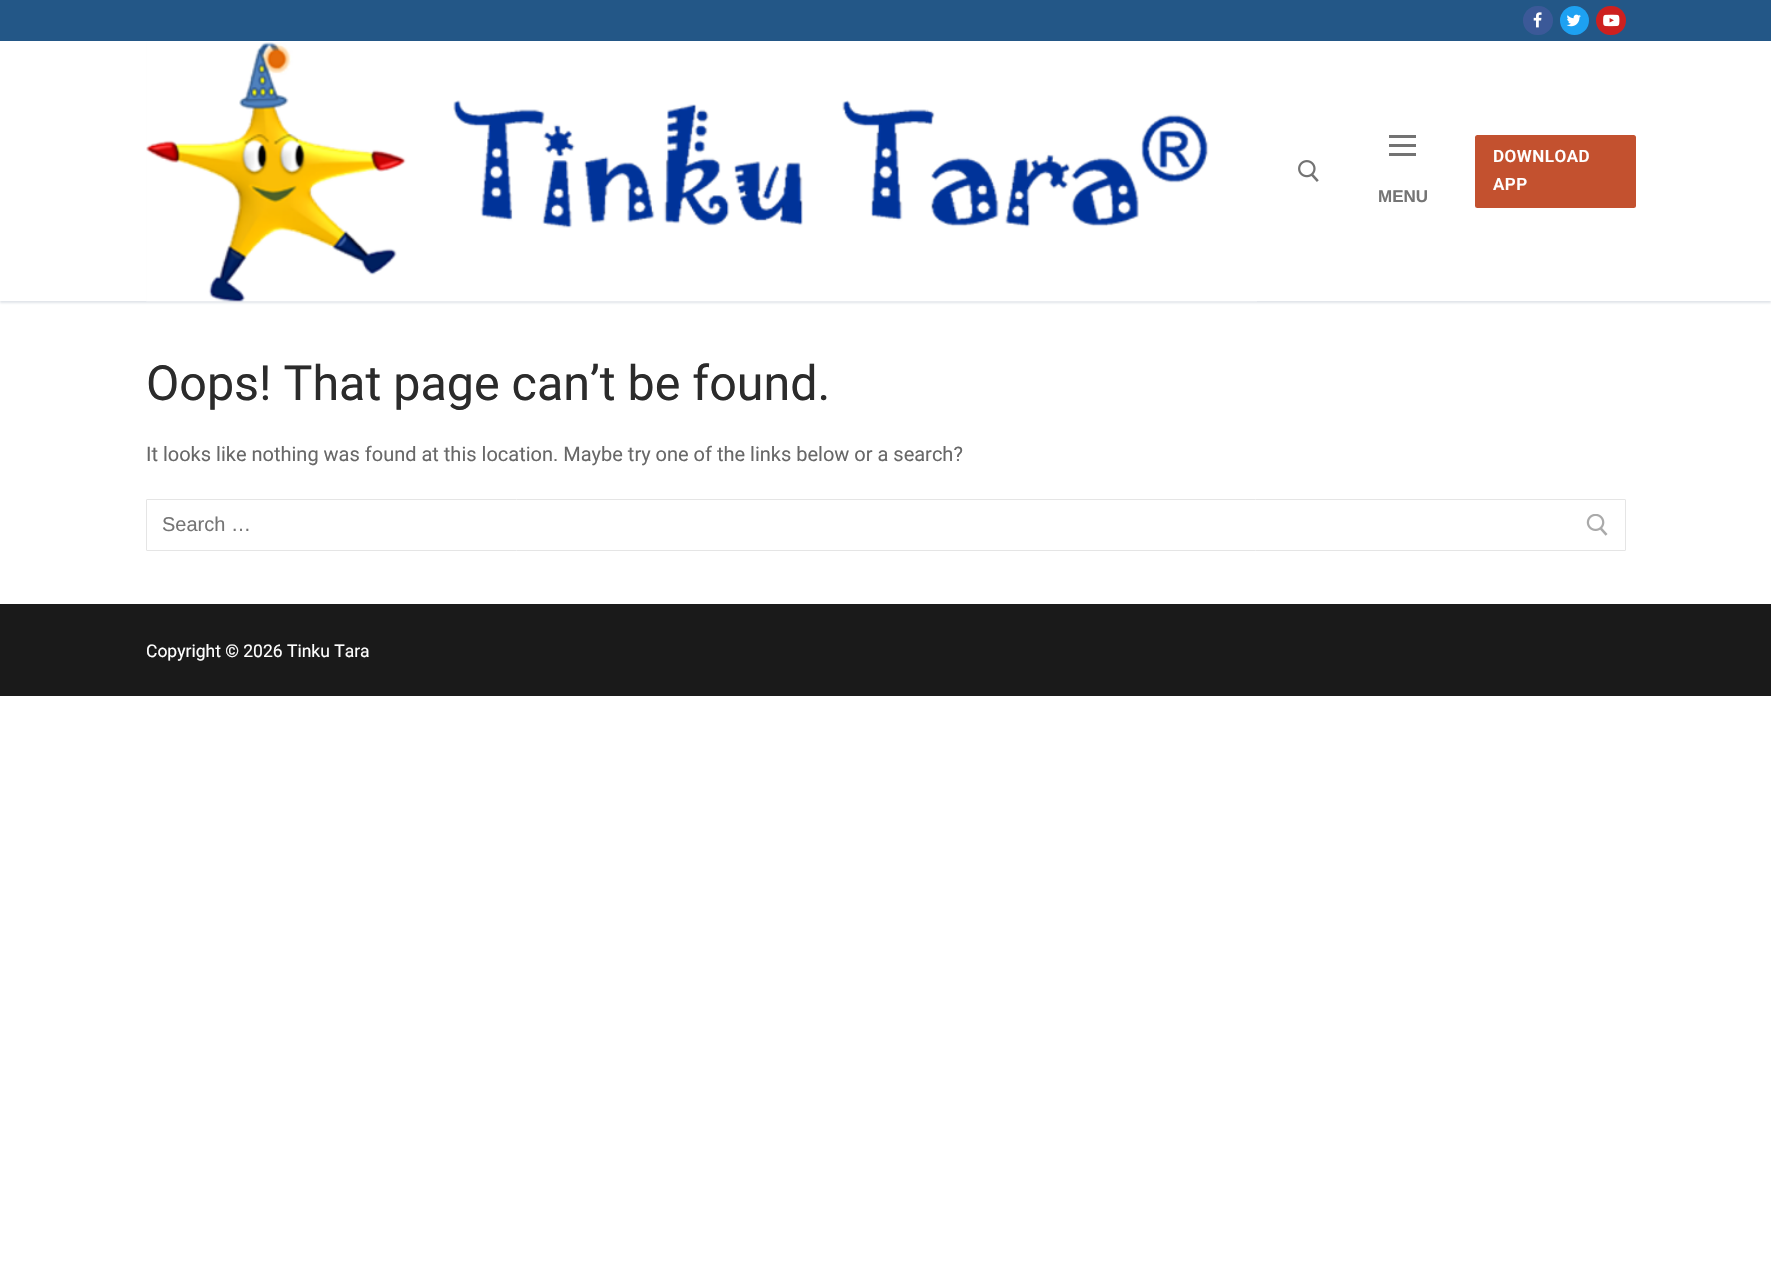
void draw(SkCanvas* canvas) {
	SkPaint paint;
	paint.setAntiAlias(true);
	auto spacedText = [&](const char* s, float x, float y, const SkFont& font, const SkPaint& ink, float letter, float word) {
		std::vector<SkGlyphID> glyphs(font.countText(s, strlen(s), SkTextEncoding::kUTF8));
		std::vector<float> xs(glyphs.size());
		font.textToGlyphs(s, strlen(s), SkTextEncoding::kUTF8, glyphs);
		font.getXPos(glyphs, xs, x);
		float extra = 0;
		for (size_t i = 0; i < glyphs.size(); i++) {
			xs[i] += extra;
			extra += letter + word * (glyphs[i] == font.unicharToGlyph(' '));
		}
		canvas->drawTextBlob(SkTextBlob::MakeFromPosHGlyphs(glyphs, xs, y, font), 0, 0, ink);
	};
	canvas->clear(0xffffffff);
	paint.setColor(0xff235787);
	canvas->drawRect(SkRect::MakeXYWH(0, 0, 1771, 41), paint);
	paint.setColor(0xff3b5998);
	canvas->drawRoundRect(SkRect::MakeXYWH(1523, 6, 30, 29), 14.5, 14.5, paint);
	canvas->drawImageRect(SkImages::DeferredFromEncodedData(SkData::MakeFromFileName("img1.png")), SkRect::MakeXYWH(1533, 12, 9, 16), SkSamplingOptions());
	paint.setColor(0xff1da1f2);
	canvas->drawCircle(1574.5, 20.5, 14.5, paint);
	canvas->drawImageRect(SkImages::DeferredFromEncodedData(SkData::MakeFromFileName("img2.png")), SkRect::MakeXYWH(1566, 14, 15, 13), SkSamplingOptions());
	paint.setColor(0xffcd201f);
	canvas->drawRoundRect(SkRect::MakeXYWH(1596, 6, 30, 29), 14.5, 14.5, paint);
	canvas->drawImageRect(SkImages::DeferredFromEncodedData(SkData::MakeFromFileName("img3.png")), SkRect::MakeXYWH(1603, 14, 17, 13), SkSamplingOptions());
	canvas->save();
	canvas->clipRect(SkRect::MakeXYWH(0, 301, 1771, 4));
	paint.setColor(0xffe1e5ea);
	paint.setMaskFilter(SkMaskFilter::MakeBlur(kNormal_SkBlurStyle, 1));
	canvas->drawRect(SkRect::MakeXYWH(0, 43, 1771, 260), paint);
	paint.setMaskFilter(nullptr);
	canvas->restore();
	canvas->drawImageRect(SkImages::DeferredFromEncodedData(SkData::MakeFromFileName("img4.png")), SkRect::MakeXYWH(146, 42, 1111, 260), SkSamplingOptions());
	canvas->drawImageRect(SkImages::DeferredFromEncodedData(SkData::MakeFromFileName("img5.png")), SkRect::MakeXYWH(1298, 160, 21, 22), SkSamplingOptions());
	paint.setColor(0xffc3512f);
	canvas->drawRoundRect(SkRect::MakeXYWH(1475, 135, 161, 73), 2.5, 2.5, paint);
	SkFont f1(fontMgr->matchFamilyStyle("Roboto", SkFontStyle(600, SkFontStyle::kNormal_Width, SkFontStyle::kUpright_Slant)), 17);
	f1.setSubpixel(true);
	paint.setColor(0xffffffff);
	spacedText("DOWNLOAD", 1493, 162, f1, paint, 0.5, 0);
	spacedText("APP", 1493, 190, f1, paint, 0.5, 0);
	paint.setColor(0xff737373);
	canvas->drawRect(SkRect::MakeXYWH(1389, 144, 27, 3), paint);
	canvas->drawRect(SkRect::MakeXYWH(1389, 135, 27, 3), paint);
	canvas->drawRect(SkRect::MakeXYWH(1389, 153, 27, 3), paint);
	SkFont f2(fontMgr->matchFamilyStyle("Liberation Sans", SkFontStyle::Bold()), 17);
	f2.setSubpixel(true);
	paint.setColor(0xff757575);
	canvas->drawString("MENU", 1378, 202, f2, paint);
	SkFont f3(fontMgr->matchFamilyStyle("Roboto", SkFontStyle::Normal()), 48.4);
	f3.setSubpixel(true);
	paint.setColor(0xff2b2b2b);
	canvas->drawString("Oops! That page can’t be found.", 146, 400, f3, paint);
	SkFont f4(fontMgr->matchFamilyStyle("Roboto", SkFontStyle::Normal()), 20);
	f4.setSubpixel(true);
	paint.setColor(0xff686868);
	canvas->drawString("It looks like nothing was found at this location. Maybe try one of the links below or a search?", 146, 461, f4, paint);
	paint.setStroke(true);
	paint.setStrokeWidth(1);
	paint.setColor(0xffe5e5e5);
	canvas->drawRoundRect(SkRect::MakeXYWH(146.5, 499.5, 1479, 51), 0.5, 0.5, paint);
	SkFont f5(fontMgr->matchFamilyStyle("Liberation Sans", SkFontStyle::Normal()), 20);
	f5.setSubpixel(true);
	paint.setStroke(false);
	paint.setColor(0xff757575);
	canvas->drawString("Search …", 162, 531, f5, paint);
	canvas->drawImageRect(SkImages::DeferredFromEncodedData(SkData::MakeFromFileName("img6.png")), SkRect::MakeXYWH(1586, 514, 22, 22), SkSamplingOptions());
	paint.setColor(0xff1a1a1a);
	canvas->drawRect(SkRect::MakeXYWH(0, 604, 1771, 92), paint);
	SkFont f6(fontMgr->matchFamilyStyle("Roboto", SkFontStyle::Normal()), 17.5);
	f6.setSubpixel(true);
	paint.setColor(0xffffffff);
	canvas->drawString("Copyright © 2026 Tinku Tara", 146, 657, f6, paint);
}
